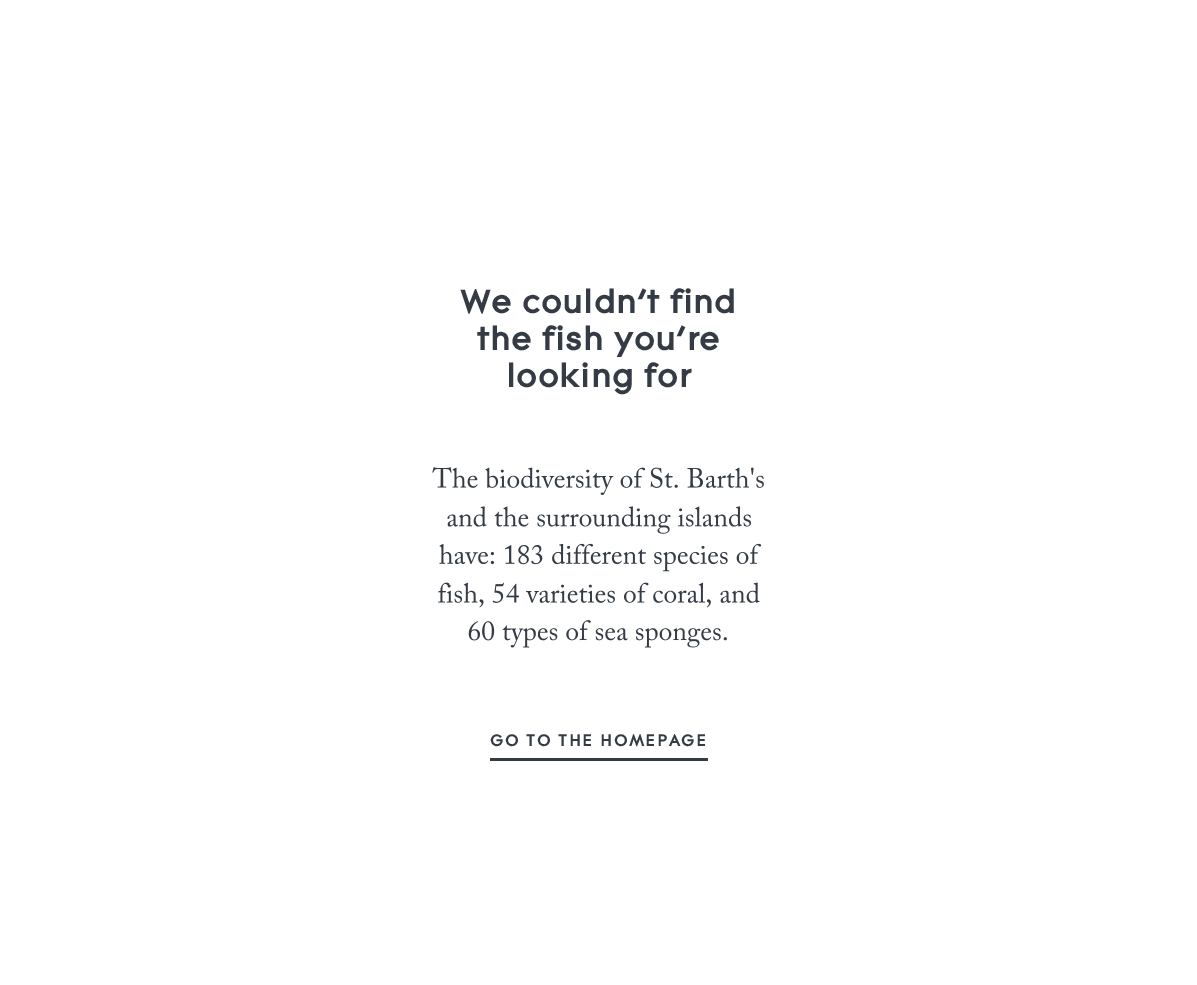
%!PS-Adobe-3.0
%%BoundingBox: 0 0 1197 985
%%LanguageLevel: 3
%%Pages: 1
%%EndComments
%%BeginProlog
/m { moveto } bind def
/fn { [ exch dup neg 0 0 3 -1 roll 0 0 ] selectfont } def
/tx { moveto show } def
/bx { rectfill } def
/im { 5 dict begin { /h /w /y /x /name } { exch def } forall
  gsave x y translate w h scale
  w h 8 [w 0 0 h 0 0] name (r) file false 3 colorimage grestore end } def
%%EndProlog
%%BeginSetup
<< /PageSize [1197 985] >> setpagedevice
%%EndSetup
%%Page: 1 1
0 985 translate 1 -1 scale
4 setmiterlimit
1 setgray
0 0 1197 985 bx
/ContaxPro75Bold-Bold 35 fn
0.204 0.231 0.271 setrgbcolor
(We couldn’t find) 460 313 tx
(the fish you’re) 477 350 tx
(looking for) 506 387 tx
(image0.raw) 432 467 332 28 im
(image1.raw) 447 506 304 28 im
(image2.raw) 439 543 323 29 im
(image3.raw) 438 582 322 26 im
(image4.raw) 468 620 259 28 im
490 758 218 3 bx
/ContaxPro75Bold-Bold 17.5 fn
490 746 m 1.25 0 (GO TO THE HOMEPAGE) ashow
showpage
%%EOF
